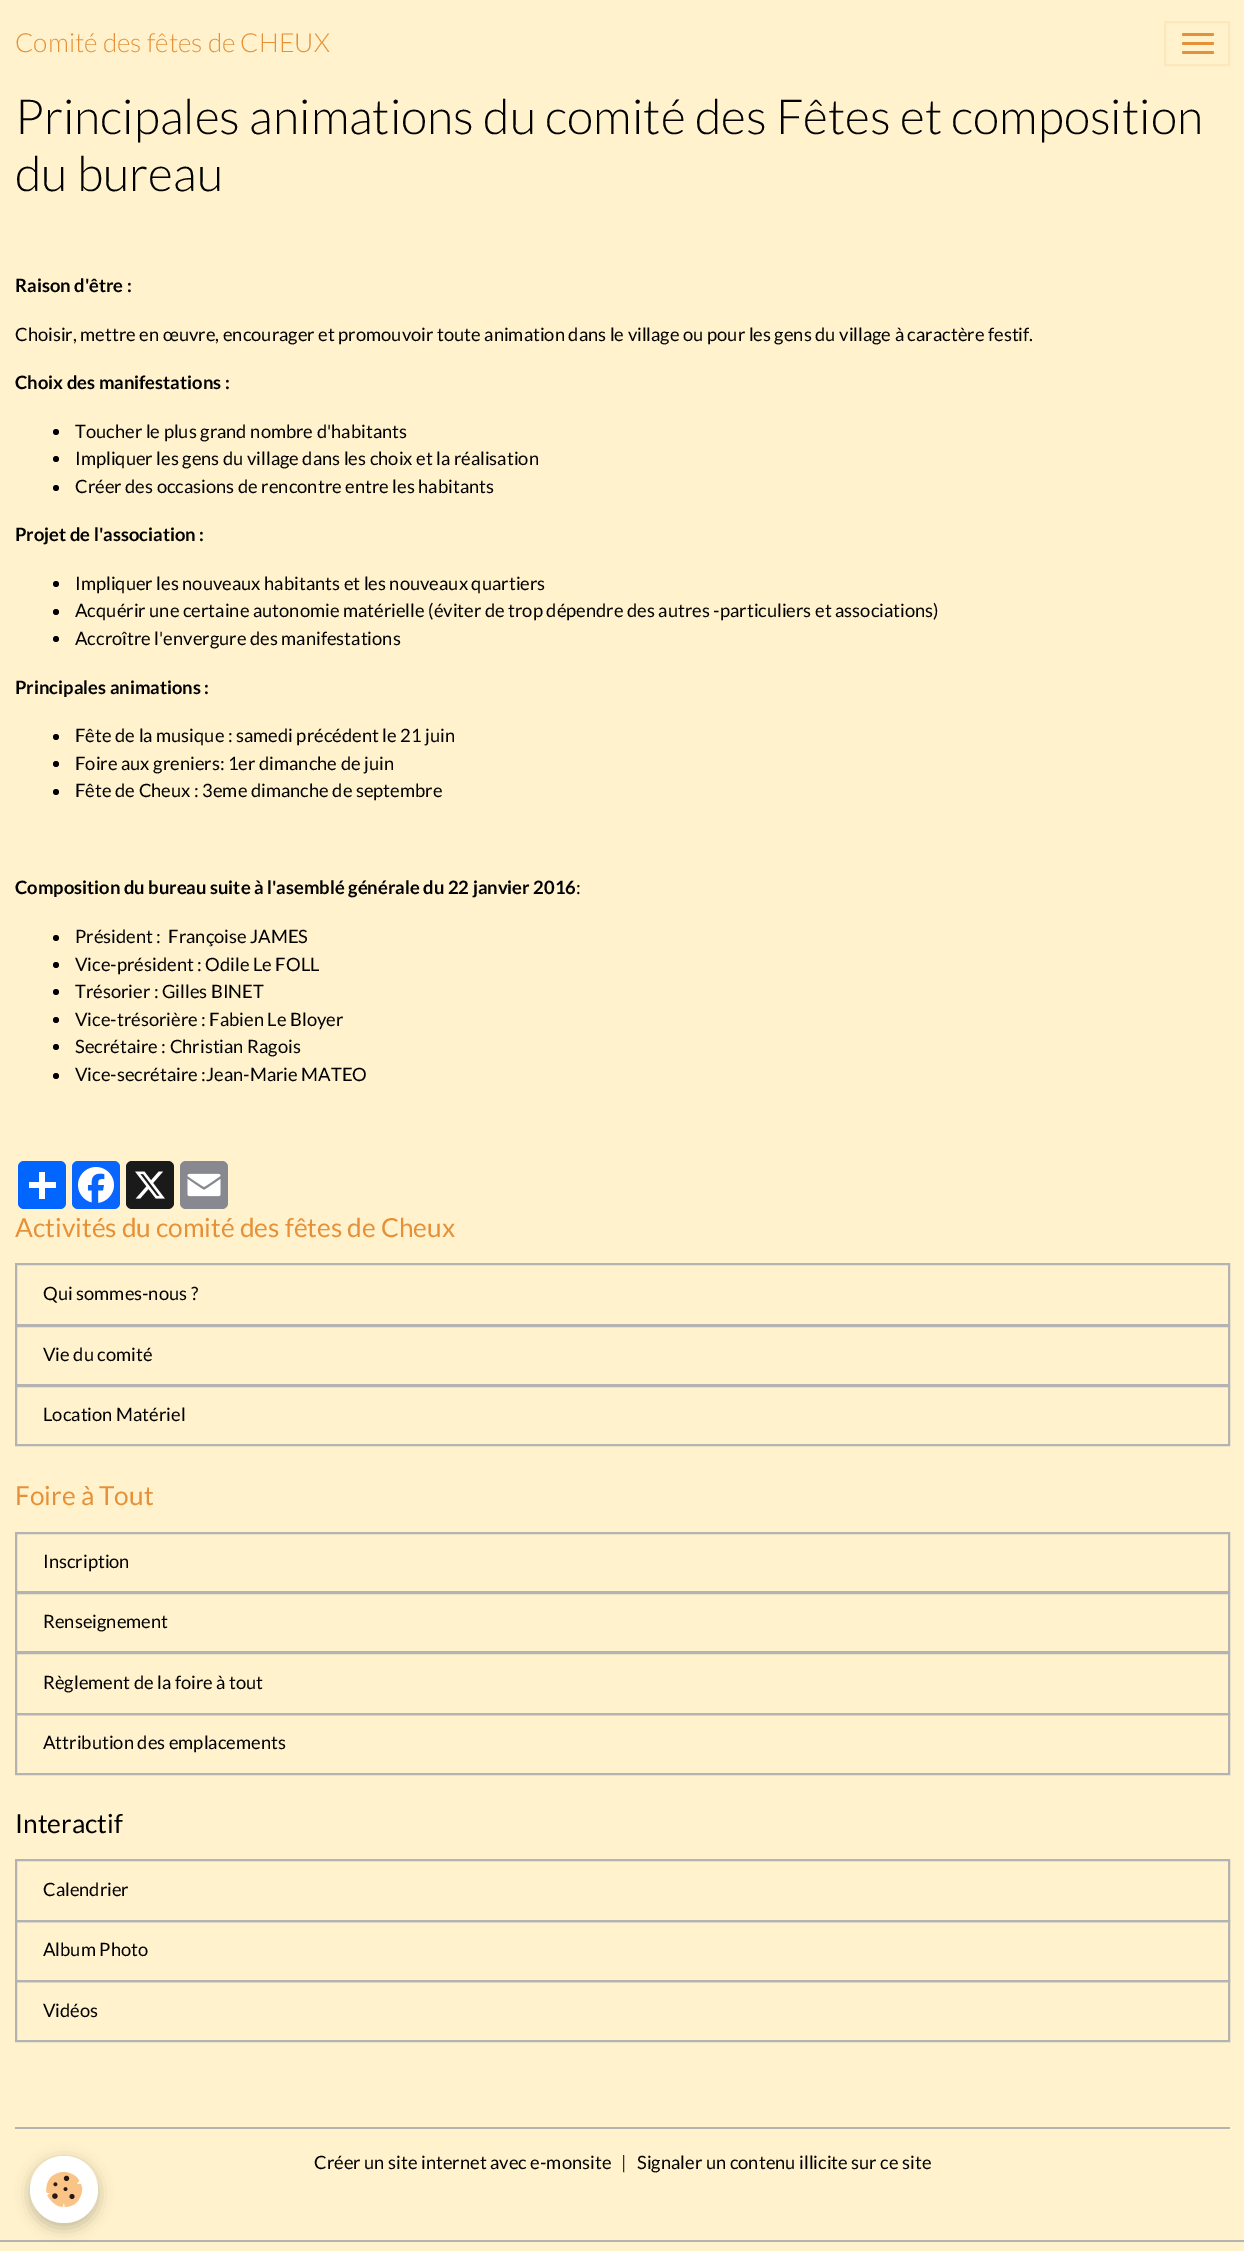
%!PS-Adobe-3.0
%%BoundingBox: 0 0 1244 2251
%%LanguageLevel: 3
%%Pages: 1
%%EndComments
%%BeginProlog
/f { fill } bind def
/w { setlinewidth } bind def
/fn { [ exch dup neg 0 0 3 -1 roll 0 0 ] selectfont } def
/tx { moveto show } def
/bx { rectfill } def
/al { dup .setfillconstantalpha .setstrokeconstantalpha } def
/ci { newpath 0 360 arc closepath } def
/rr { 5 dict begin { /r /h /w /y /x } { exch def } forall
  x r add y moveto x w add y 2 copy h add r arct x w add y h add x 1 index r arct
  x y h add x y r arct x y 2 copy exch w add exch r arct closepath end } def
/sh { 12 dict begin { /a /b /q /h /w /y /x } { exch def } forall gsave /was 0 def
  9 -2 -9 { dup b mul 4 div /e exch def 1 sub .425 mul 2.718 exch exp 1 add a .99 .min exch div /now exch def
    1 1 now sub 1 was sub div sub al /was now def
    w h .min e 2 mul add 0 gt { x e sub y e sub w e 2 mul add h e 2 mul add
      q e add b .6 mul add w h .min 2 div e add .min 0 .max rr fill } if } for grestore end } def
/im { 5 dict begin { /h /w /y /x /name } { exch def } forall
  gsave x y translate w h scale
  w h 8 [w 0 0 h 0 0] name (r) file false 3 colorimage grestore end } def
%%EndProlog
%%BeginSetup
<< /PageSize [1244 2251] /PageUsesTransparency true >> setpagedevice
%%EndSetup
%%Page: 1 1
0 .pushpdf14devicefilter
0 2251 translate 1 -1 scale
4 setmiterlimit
1 0.949 0.8 setrgbcolor
0 0 1244 2251 bx
/Lato-Light 26.25 fn
0.902 0.569 0.22 setrgbcolor
(Comité des fêtes de CHEUX) 15 52 tx
0.992 0.91 0.741 setrgbcolor
2 w
1165 22 64 43 rectstroke
0.902 0.569 0.22 setrgbcolor
1182 33 32 3 1.5 rr f
1182 42 32 3 1.5 rr f
1182 51 32 3 1.5 rr f
/Lato-Light 48.3 fn
0 setgray
(Principales animations du comité des Fêtes et composition) 15 134 tx
(du bureau) 15 191 tx
/Lato-Bold 18.38 fn
(Raison d'être :) 15 292 tx
/Lato-Regular 18.38 fn
(Choisir, mettre en œuvre, encourager et promouvoir toute animation dans le village ou pour les gens du village à caractère festif.) 15 341 tx
/Lato-Bold 18.38 fn
(Choix des manifestations :) 15 389 tx
56 432 3 ci f
/Lato-Regular 18.38 fn
(Toucher le plus grand nombre d'habitants) 75 438 tx
56 459 3 ci f
(Impliquer les gens du village dans les choix et la réalisation) 75 465 tx
56 488 3 ci f
(Créer des occasions de rencontre entre les habitants) 75 493 tx
/Lato-Bold 18.38 fn
(Projet de l'association :) 15 541 tx
56 584 3 ci f
/Lato-Regular 18.38 fn
(Impliquer les nouveaux habitants et les nouveaux quartiers) 75 590 tx
56 612 3 ci f
(Acquérir une certaine autonomie matérielle \(éviter de trop dépendre des autres -particuliers et associations\)) 75 617 tx
56 639 3 ci f
(Accroître l'envergure des manifestations) 75 645 tx
/Lato-Bold 18.38 fn
(Principales animations :) 15 694 tx
56 737 3 ci f
/Lato-Regular 18.38 fn
(Fête de la musique : samedi précédent le 21 juin) 75 742 tx
56 764 3 ci f
(Foire aux greniers: 1er dimanche de juin) 75 770 tx
56 792 3 ci f
(Fête de Cheux : 3eme dimanche de septembre) 75 797 tx
/Lato-Bold 18.38 fn
(Composition du bureau suite à l'asemblé générale du 22 janvier 2016) 15 894 tx
/Lato-Regular 18.38 fn
(:) 576 894 tx
56 938 3 ci f
(Président :  Françoise JAMES) 75 943 tx
56 965 3 ci f
(Vice-président : Odile Le FOLL) 75 971 tx
56 992 3 ci f
(Trésorier : Gilles BINET) 75 998 tx
56 1020 3 ci f
(Vice-trésorière : Fabien Le Bloyer) 75 1026 tx
56 1047 3 ci f
(Secrétaire : Christian Ragois) 75 1053 tx
56 1076 3 ci f
(Vice-secrétaire :Jean-Marie MATEO) 75 1081 tx
0.004 0.4 1 setrgbcolor
18 1161 48 48 6 rr f
1 setgray
39 1172 6 27 bx
29 1182 27 6 bx
0.031 0.4 1 setrgbcolor
72 1161 48 48 6 rr f
(image0.raw) 78 1167 36 36 im
0.102 setgray
126 1161 48 48 6 rr f
(image1.raw) 135 1171 30 28 im
0.533 0.537 0.565 setrgbcolor
180 1161 48 48 6 rr f
(image2.raw) 187 1173 34 24 im
/Lato-Regular 26.25 fn
0.902 0.569 0.22 setrgbcolor
(Activités du comité des fêtes de Cheux) 15 1237 tx
0.702 setgray
16 1264 1213 61 rectstroke
/Lato-Regular 18.38 fn
0 setgray
(Qui sommes-nous ?) 43 1300 tx
0.702 setgray
16 1326 1213 59 rectstroke
0 setgray
(Vie du comité) 43 1361 tx
0.702 setgray
16 1386 1213 59 rectstroke
0 setgray
(Location Matériel) 43 1421 tx
/Lato-Regular 26.25 fn
0.902 0.569 0.22 setrgbcolor
(Foire à Tout) 15 1505 tx
0.702 setgray
16 1533 1213 59 rectstroke
/Lato-Regular 18.38 fn
0 setgray
(Inscription) 43 1568 tx
0.702 setgray
16 1593 1213 59 rectstroke
0 setgray
(Renseignement) 43 1628 tx
0.702 setgray
16 1653 1213 61 rectstroke
0 setgray
(Règlement de la foire à tout) 43 1689 tx
0.702 setgray
16 1714 1213 60 rectstroke
0 setgray
(Attribution des emplacements) 43 1749 tx
/Lato-Regular 26.25 fn
(Interactif) 15 1833 tx
0.702 setgray
16 1860 1213 61 rectstroke
/Lato-Regular 18.38 fn
0 setgray
(Calendrier) 43 1896 tx
0.702 setgray
16 1921 1213 60 rectstroke
0 setgray
(Album Photo) 43 1956 tx
0.702 setgray
16 1981 1213 60 rectstroke
0 setgray
(Vidéos) 43 2017 tx
0.702 setgray
0 2240 1244 2 bx
0 setgray
30 2160 68 68 34 7.5 0.24 sh
1 setgray
30 2156 68 67 33.5 rr f
(image3.raw) 46 2171 37 36 im
0.702 setgray
15 2127 1215 2 bx
0 setgray
(Créer un site internet avec e-monsite) 314 2169 tx
0.2 0.188 0.161 setrgbcolor
(|) 621 2169 tx
0 setgray
(Signaler un contenu illicite sur ce site) 637 2169 tx
.poppdf14devicefilter showpage
%%EOF
